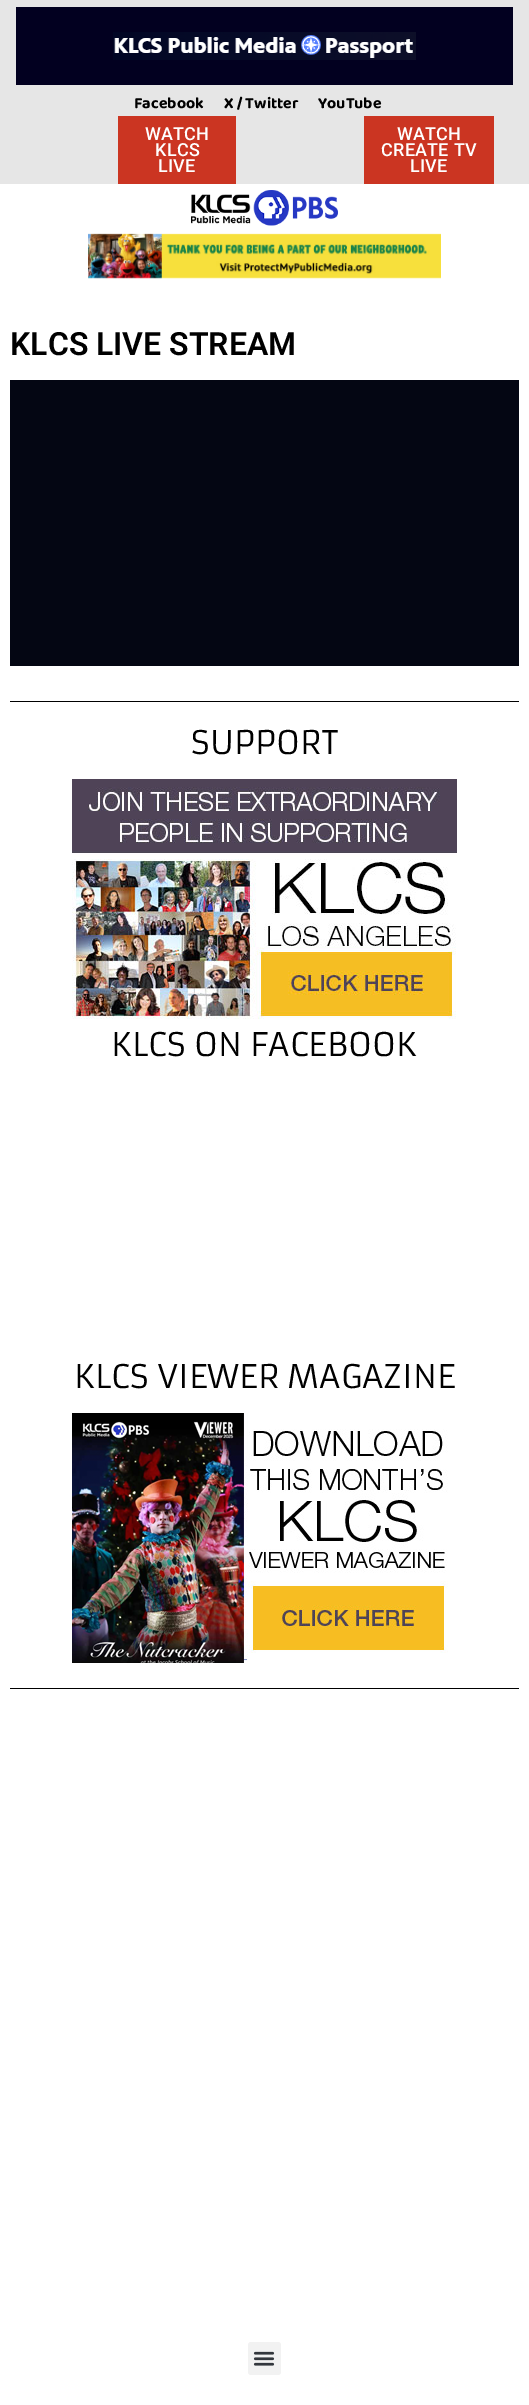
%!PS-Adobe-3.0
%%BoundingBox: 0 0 529 2405
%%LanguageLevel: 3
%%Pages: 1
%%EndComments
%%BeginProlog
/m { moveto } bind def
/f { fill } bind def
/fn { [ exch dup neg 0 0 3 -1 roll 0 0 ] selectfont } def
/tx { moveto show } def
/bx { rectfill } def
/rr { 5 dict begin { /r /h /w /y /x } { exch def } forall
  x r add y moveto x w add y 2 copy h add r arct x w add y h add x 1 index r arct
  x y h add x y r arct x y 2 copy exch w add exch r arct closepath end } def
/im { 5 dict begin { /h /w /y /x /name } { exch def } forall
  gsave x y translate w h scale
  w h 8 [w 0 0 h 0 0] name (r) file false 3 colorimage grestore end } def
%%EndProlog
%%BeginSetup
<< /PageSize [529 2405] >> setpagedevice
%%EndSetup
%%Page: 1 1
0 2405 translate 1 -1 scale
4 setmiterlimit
1 setgray
0 0 529 2405 bx
0.902 setgray
0 0 529 184 bx
0.008 0 0.125 setrgbcolor
16 7 497 78 bx
(image0.raw) 113 32 303 28 im
/Baloo2-Bold 16 fn
0 setgray
(Facebook) 134 108 tx
(X / Twitter) 224 108 tx
(YouTube) 318 108 tx
0.796 0.208 0.133 setrgbcolor
118 116 118 68 bx
/Roboto-Medium 18 fn
1 setgray
145 140 m 0.25 0 (WATCH) ashow
155 156 m 0.25 0 (KLCS) ashow
158 172 m 0.25 0 (LIVE) ashow
0.796 0.208 0.133 setrgbcolor
364 116 130 68 bx
1 setgray
397 140 m 0.25 0 (WATCH) ashow
381 156 m 0.25 0 (CREATE TV) ashow
410 172 m 0.25 0 (LIVE) ashow
(image1.raw) 191 190 147 36 im
(image2.raw) 88 233 353 46 im
/Roboto-SemiBold 32 fn
0 setgray
(KLCS LIVE STREAM) 10 355 tx
0.016 0.024 0.075 setrgbcolor
10 380 509 286 bx
0 setgray
10 701 509 1 bx
/Armata-Regular 32 fn
(SUPPORT) 191 754 tx
(image3.raw) 72 779 385 240 im
(KLCS ON FACEBOOK) 111 1056 tx
(KLCS VIEWER MAGAZINE) 74 1388 tx
(image4.raw) 72 1413 376 250 im
10 1688 509 1 bx
0.949 setgray
248 2342 33 33 3 rr f
(image5.raw) 253 2351 22 15 im
showpage
%%EOF
